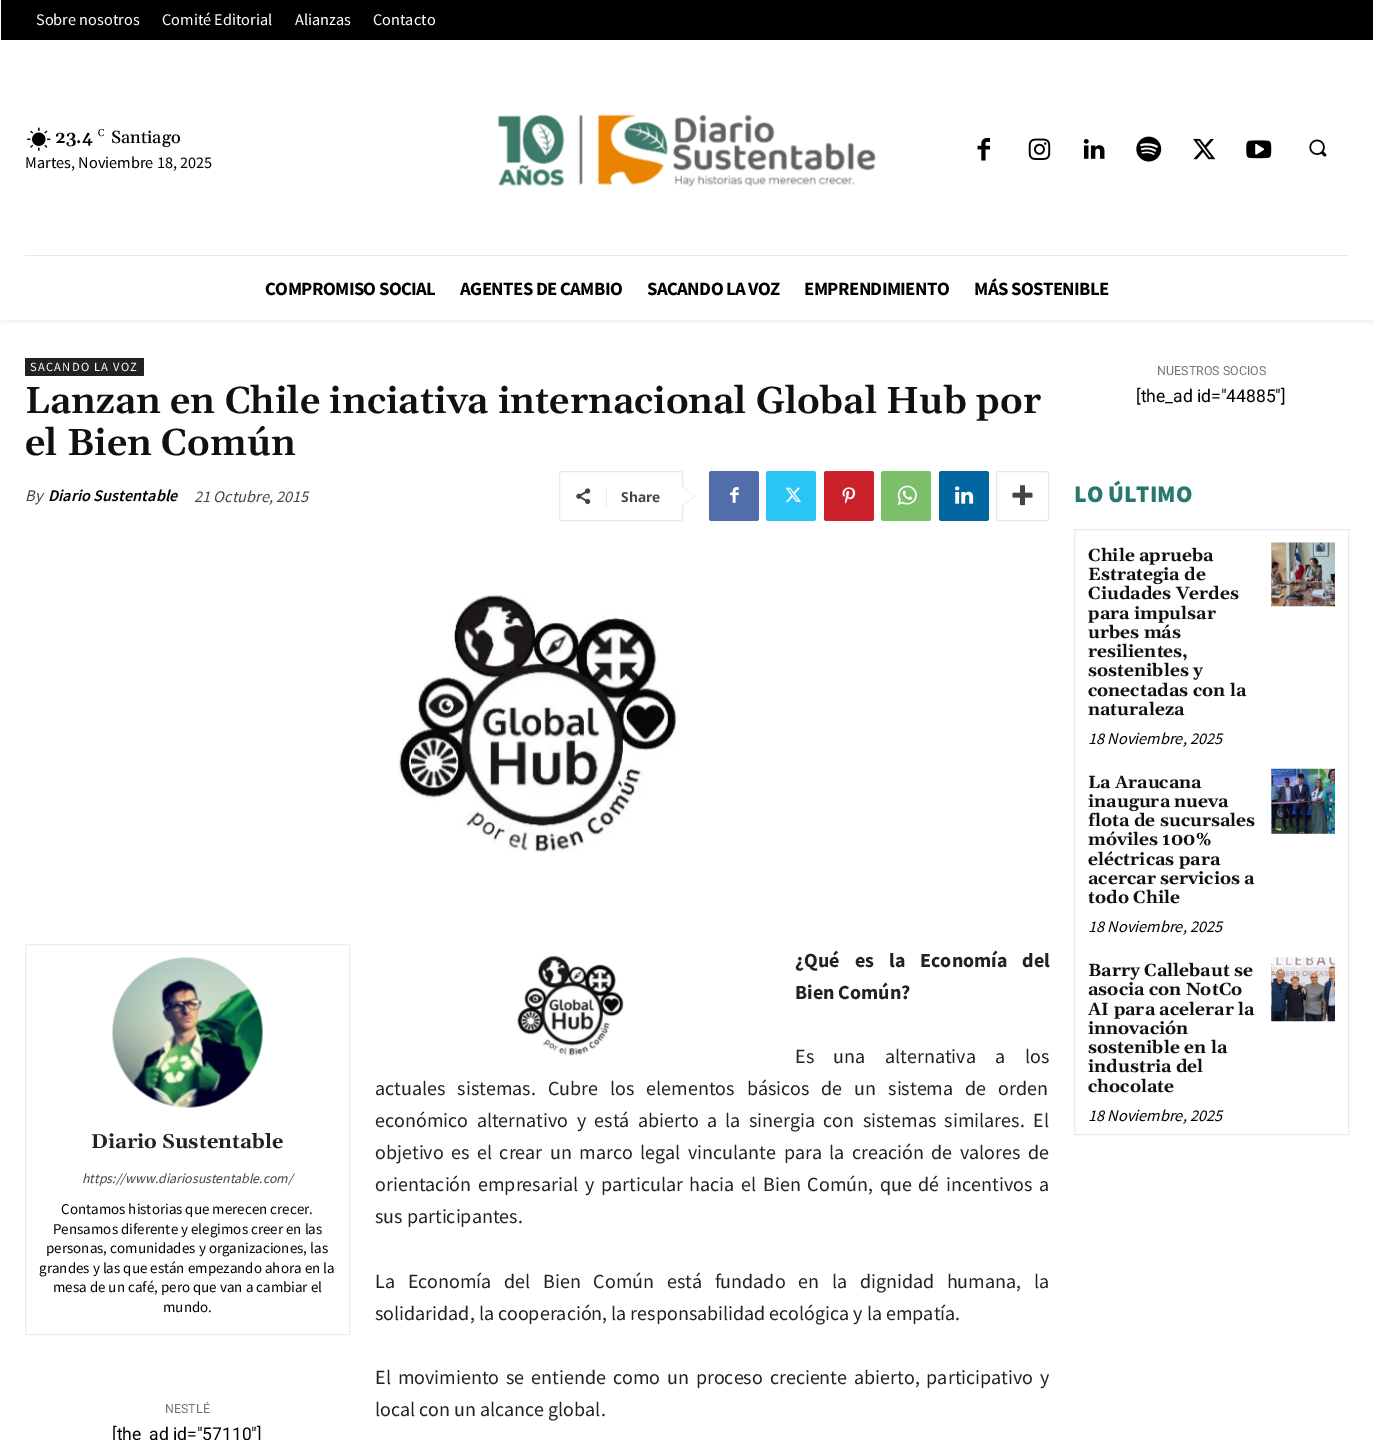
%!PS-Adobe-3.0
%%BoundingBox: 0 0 1373 1440
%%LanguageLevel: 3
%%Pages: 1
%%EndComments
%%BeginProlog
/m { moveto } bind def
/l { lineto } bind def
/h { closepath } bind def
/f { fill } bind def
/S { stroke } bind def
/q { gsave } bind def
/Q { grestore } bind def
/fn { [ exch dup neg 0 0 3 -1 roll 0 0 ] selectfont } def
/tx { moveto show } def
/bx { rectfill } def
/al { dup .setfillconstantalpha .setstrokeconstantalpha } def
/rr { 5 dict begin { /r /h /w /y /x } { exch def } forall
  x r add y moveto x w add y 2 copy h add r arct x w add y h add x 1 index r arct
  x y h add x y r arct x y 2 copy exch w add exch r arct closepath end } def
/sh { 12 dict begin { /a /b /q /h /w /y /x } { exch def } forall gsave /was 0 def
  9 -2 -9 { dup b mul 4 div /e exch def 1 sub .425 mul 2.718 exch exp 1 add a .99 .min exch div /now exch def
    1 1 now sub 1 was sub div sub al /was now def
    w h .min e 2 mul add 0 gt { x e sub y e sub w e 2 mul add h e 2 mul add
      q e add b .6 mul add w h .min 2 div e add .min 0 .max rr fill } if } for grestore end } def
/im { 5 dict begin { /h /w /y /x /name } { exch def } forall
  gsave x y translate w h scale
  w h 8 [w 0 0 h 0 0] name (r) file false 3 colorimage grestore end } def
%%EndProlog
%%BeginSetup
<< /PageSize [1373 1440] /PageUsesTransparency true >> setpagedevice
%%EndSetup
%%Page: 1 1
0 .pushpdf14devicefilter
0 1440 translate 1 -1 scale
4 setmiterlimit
1 setgray
0 0 1373 1440 bx
0 setgray
1 0 1372 40 bx
/SourceSansPro-Regular 16.25 fn
1 setgray
(Sobre nosotros) 36 25 tx
(Comité Editorial) 162 25 tx
(Alianzas) 295 25 tx
(Contacto) 373 25 tx
(image0.raw) 27 127 24 24 im
/Gelasio-SemiBold 17.5 fn
0 setgray
(23.4) 55 143 tx
/Gelasio-Regular 10 fn
(C) 98 136 tx
/Gelasio-Medium 17.5 fn
(Santiago) 111 143 tx
/SourceSansPro-Regular 16.25 fn
(Martes, Noviembre 18, 2025) 25 168 tx
(image1.raw) 497 114 379 73 im
(image2.raw) 977 138 13 23 im
(image3.raw) 1028 138 23 22 im
(image4.raw) 1083 139 22 20 im
(image5.raw) 1136 136 26 26 im
(image6.raw) 1193 138 23 22 im
(image7.raw) 1246 140 26 19 im
(image8.raw) 1309 139 18 18 im
0.918 setgray
25 255 1324 1 bx
q
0 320 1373 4 rectclip
0 setgray
1 220 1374 103 0 2.5 0.06 sh
Q
/SourceSansPro-Bold 18.75 fn
0 setgray
265 295 m -0.6 0 (COMPROMISO SOCIAL) ashow
460 295 m -0.6 0 (AGENTES DE CAMBIO) ashow
647 295 m -0.6 0 (SACANDO LA VOZ) ashow
804 295 m -0.6 0 (EMPRENDIMIENTO) ashow
974 295 m -0.6 0 (MÁS SOSTENIBLE) ashow
0.133 setgray
25 358 119 18 bx
/SourceSansPro-Regular 12.5 fn
1 setgray
30 371 m 1.25 0 (SACANDO LA VOZ) ashow
/Gelasio-SemiBold 37.5 fn
0.067 setgray
(Lanzan en Chile inciativa internacional Global Hub por) 25 413 tx
(el Bien Común) 25 455 tx
/SourceSansPro-Italic 16.25 fn
0.267 setgray
(By) 25 501 tx
/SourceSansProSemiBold-SemiBoldItalic 16.25 fn
0 setgray
(Diario Sustentable) 48 501 tx
/SourceSansPro-Italic 16.25 fn
0.267 setgray
(21 Octubre, 2015) 194 502 tx
0.914 setgray
559.5 471.5 123 49 2 rr S
681 507.5 m 681 485 l 695 496 l h f
(image9.raw) 576 488 15 17 im
0.922 setgray
606 488 1 20 bx
/OpenSans-Bold 13.75 fn
0.267 setgray
(Share) 621 502 tx
1 setgray
681 506 m 681 486 l 694 496 l h f
0.318 0.431 0.671 setrgbcolor
709 471 50 50 2.5 rr f
(image10.raw) 730 487 9 16 im
0.161 0.773 0.965 setrgbcolor
766 471 50 50 2.5 rr f
(image11.raw) 785 487 16 15 im
0.792 0.129 0.165 setrgbcolor
824 471 50 50 2.5 rr f
(image12.raw) 842 487 14 17 im
0.482 0.749 0.416 setrgbcolor
881 471 50 50 2.5 rr f
(image13.raw) 897 485 20 20 im
0.008 0.4 0.627 setrgbcolor
939 471 50 50 2.5 rr f
(image14.raw) 955 486 19 18 im
0.914 setgray
996.5 471.5 52 49 2 rr S
(image15.raw) 1012 485 21 21 im
(image16.raw) 398 594 279 258 im
0.929 setgray
25.5 944.5 324 390 rectstroke
(image17.raw) 112 957 151 151 im
/Gelasio-Bold 20 fn
0.133 setgray
(Diario Sustentable) 91 1148 tx
/SourceSansPro-Italic 13.75 fn
0.267 setgray
(https://www.diariosustentable.com/) 82 1183 tx
/SourceSansPro-Regular 15 fn
0 setgray
(Contamos historias que merecen crecer.) 61 1214 tx
(Pensamos diferente y elegimos creer en las) 53 1234 tx
(personas, comunidades y organizaciones, las) 46 1253 tx
(grandes y las que están empezando ahora en la) 39 1273 tx
(mesa de un café, pero que van a cambiar el) 53 1292 tx
(mundo.) 163 1312 tx
/Roboto-Regular 12.5 fn
0.463 setgray
(NESTLÉ) 165 1413 tx
/Roboto-Regular 17.5 fn
0 setgray
([the_ad id="57110"]) 112 1440 tx
(image18.raw) 517 955 107 101 im
/SourceSansPro-Bold 20 fn
0.133 setgray
795 967 m 11 0 32 (¿Qué es la Economía del) widthshow
(Bien Común?) 795 999 tx
/SourceSansPro-Regular 20 fn
795 1063 m 15.5 0 32 (Es una alternativa a los) widthshow
375 1095 m 8 0 32 (actuales sistemas. Cubre los elementos básicos de un sistema de orden) widthshow
375 1127 m 4.4 0 32 (económico alternativo y está abierto a la sinergia con sistemas similares. El) widthshow
375 1159 m 3.5 0 32 (objetivo es el crear un marco legal vinculante para la creación de valores de) widthshow
375 1191 m 2.75 0 32 (orientación empresarial y particular hacia el Bien Común, que dé incentivos a) widthshow
(sus participantes.) 375 1223 tx
375 1288 m 8.75 0 32 (La Economía del Bien Común está fundado en la dignidad humana, la) widthshow
(solidaridad, la cooperación, la responsabilidad ecológica y la empatía.) 375 1320 tx
375 1384 m 2.9 0 32 (El movimiento se entiende como un proceso creciente abierto, participativo y) widthshow
(local con un alcance global.) 375 1416 tx
/Roboto-Regular 12.5 fn
0.463 setgray
(NUESTROS SOCIOS) 1157 375 tx
/Roboto-Regular 17.5 fn
0 setgray
([the_ad id="44885"]) 1136 402 tx
/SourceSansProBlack-Black 23.75 fn
0.157 0.471 0.431 setrgbcolor
(LO ÚLTIMO) 1074 502 tx
0.918 setgray
1074.5 529.5 274 605 rectstroke
/Gelasio-Bold 17.5 fn
0.067 setgray
(Chile aprueba) 1088 561 tx
(Estrategia de) 1088 580 tx
(Ciudades Verdes) 1088 599 tx
(para impulsar) 1088 619 tx
(urbes más) 1088 638 tx
(resilientes,) 1088 657 tx
(sostenibles y) 1088 676 tx
(conectadas con la) 1088 696 tx
(naturaleza) 1088 715 tx
/SourceSansPro-Italic 16.25 fn
0 setgray
(18 Noviembre, 2025) 1088 744 tx
(image19.raw) 1271 542 64 65 im
/Gelasio-Bold 17.5 fn
0.067 setgray
(La Araucana) 1088 788 tx
(inaugura nueva) 1088 807 tx
(flota de sucursales) 1088 826 tx
(móviles 100%) 1088 845 tx
(eléctricas para) 1088 865 tx
(acercar servicios a) 1088 884 tx
(todo Chile) 1088 903 tx
/SourceSansPro-Italic 16.25 fn
0 setgray
(18 Noviembre, 2025) 1088 932 tx
(image20.raw) 1271 768 64 66 im
/Gelasio-Bold 17.5 fn
0.067 setgray
(Barry Callebaut se) 1088 976 tx
(asocia con NotCo) 1088 995 tx
(AI para acelerar la) 1088 1015 tx
(innovación) 1088 1034 tx
(sostenible en la) 1088 1053 tx
(industria del) 1088 1072 tx
(chocolate) 1088 1092 tx
/SourceSansPro-Italic 16.25 fn
0 setgray
(18 Noviembre, 2025) 1088 1121 tx
(image21.raw) 1271 957 64 65 im
.poppdf14devicefilter showpage
%%EOF
